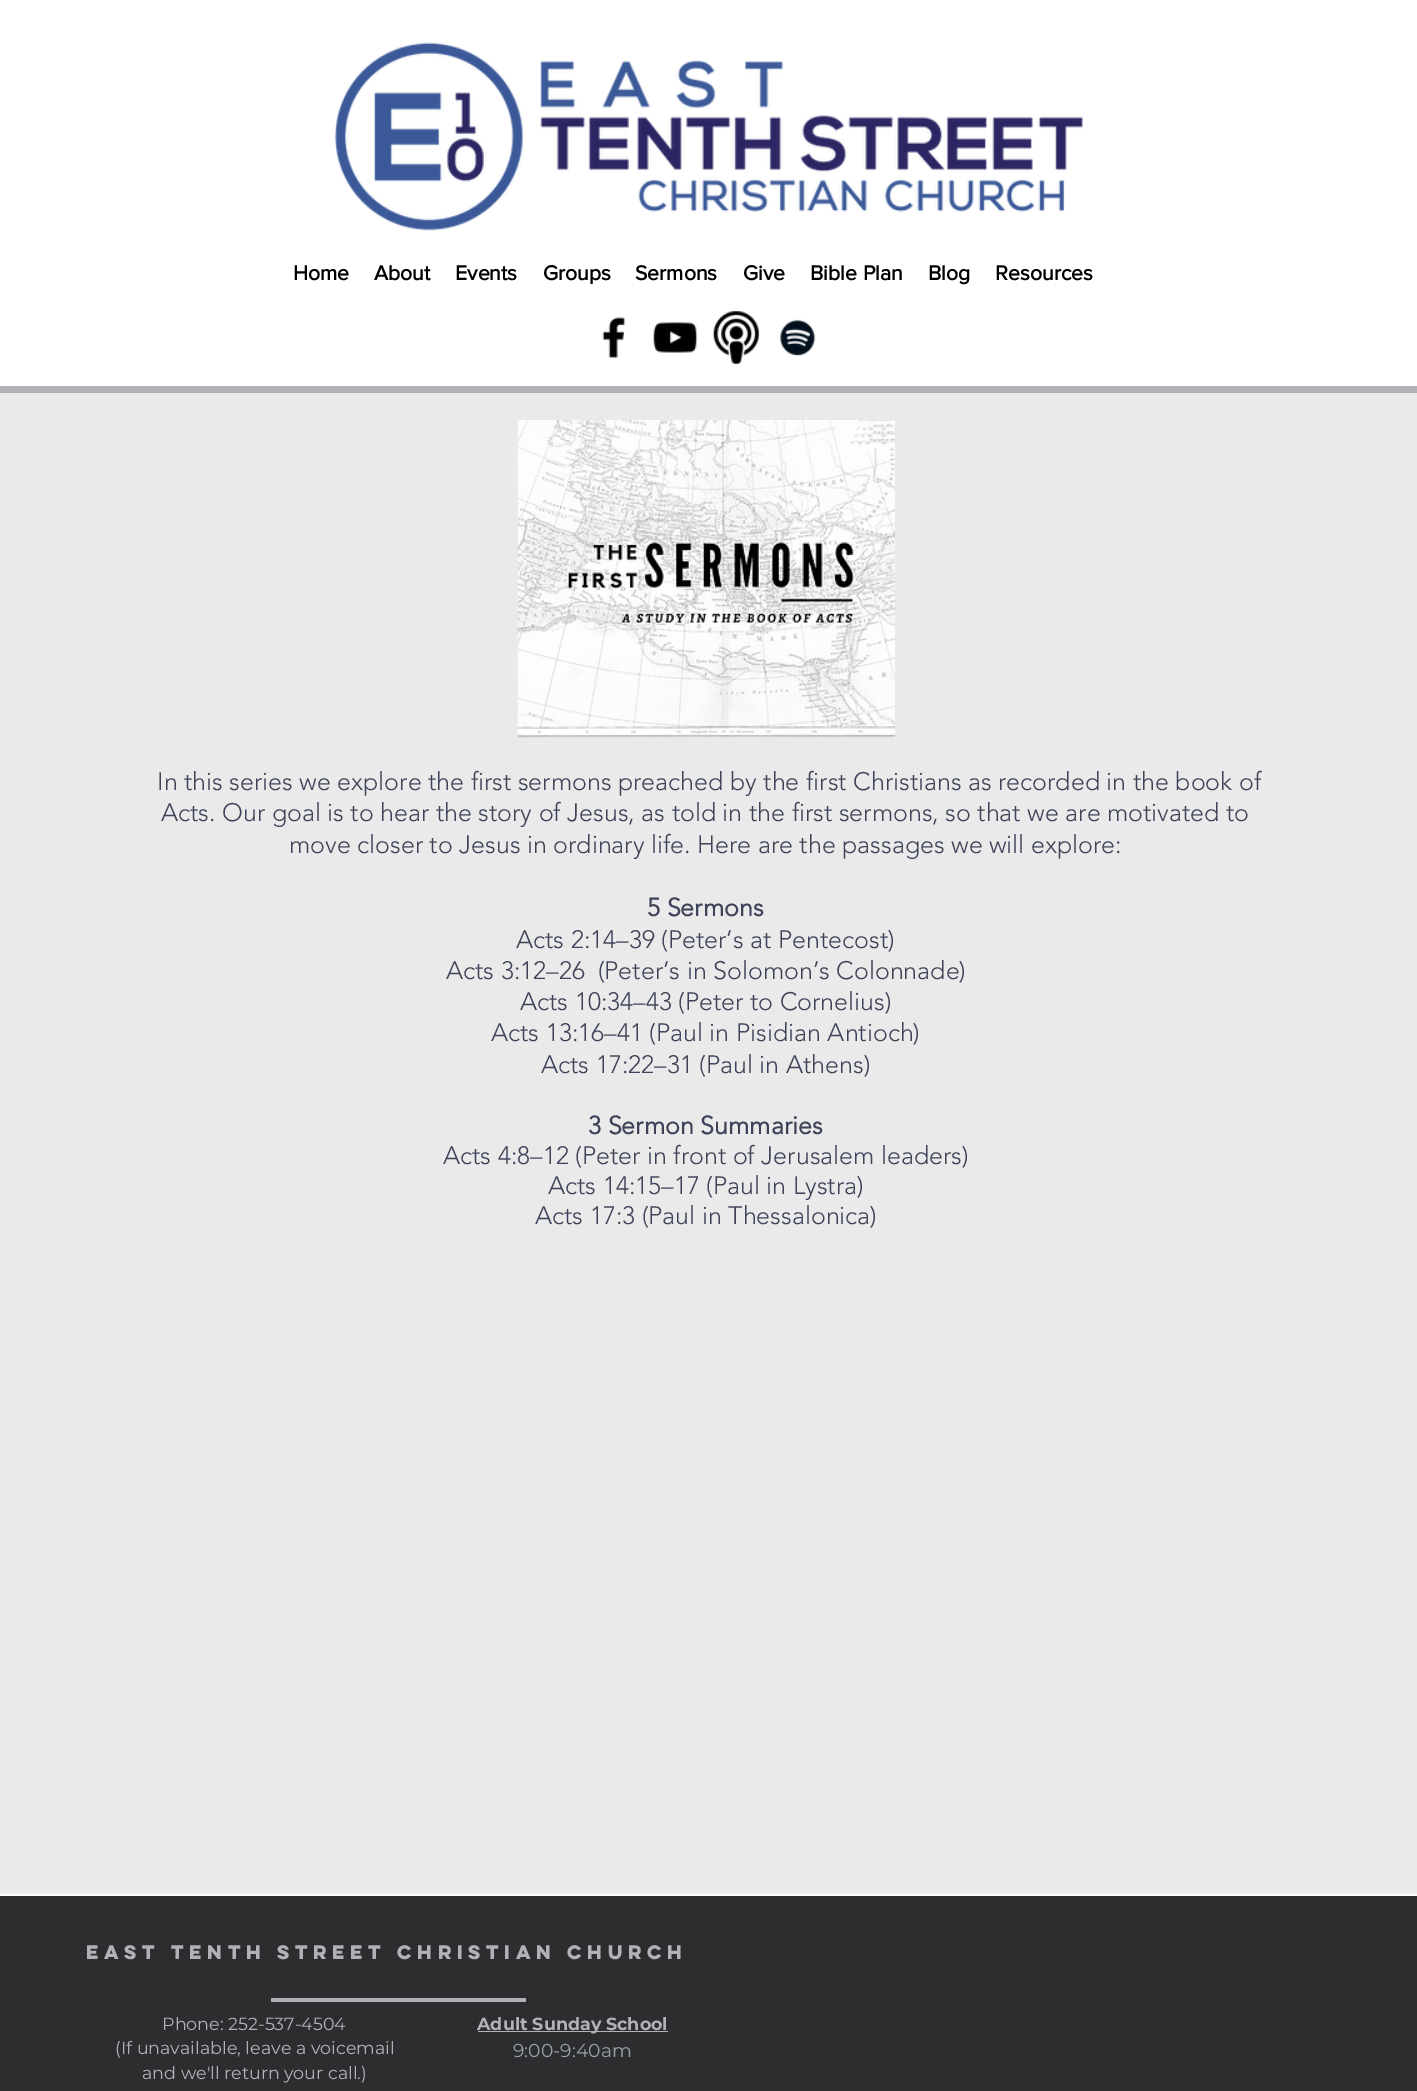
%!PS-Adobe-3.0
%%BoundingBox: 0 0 1417 2091
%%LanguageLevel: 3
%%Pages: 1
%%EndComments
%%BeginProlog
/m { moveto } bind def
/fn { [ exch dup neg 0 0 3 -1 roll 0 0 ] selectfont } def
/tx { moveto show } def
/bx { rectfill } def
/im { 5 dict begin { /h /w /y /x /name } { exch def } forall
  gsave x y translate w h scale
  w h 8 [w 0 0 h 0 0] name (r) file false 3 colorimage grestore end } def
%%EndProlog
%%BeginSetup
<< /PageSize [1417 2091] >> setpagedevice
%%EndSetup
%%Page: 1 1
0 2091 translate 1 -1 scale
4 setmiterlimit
1 setgray
0 0 1417 2091 bx
(image0.raw) 334 42 749 189 im
/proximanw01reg-Bold 21.25 fn
0 setgray
(Home) 293 280 tx
(About) 374 280 tx
(Events) 455 280 tx
(Groups) 543 280 tx
(Sermons) 635 280 tx
(Give) 743 280 tx
(Bible Plan) 810 280 tx
(Blog) 928 280 tx
(Resources) 995 280 tx
(image1.raw) 602 317 24 41 im
(image2.raw) 653 322 45 31 im
(image3.raw) 712 311 48 53 im
(image4.raw) 779 319 37 37 im
0.69 0.698 0.722 setrgbcolor
0 386 1417 7 bx
0.918 setgray
0 393 1417 1501 bx
(image5.raw) 517 420 378 318 im
/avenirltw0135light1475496-Light 25 fn
0.247 0.263 0.349 setrgbcolor
(In this series we explore the first sermons preached by the first Christians as recorded in the book of) 157 790 tx
(Acts. Our goal is to hear the story of Jesus, as told in the first sermons, so that we are motivated to) 161 821 tx
(move closer to Jesus in ordinary life. Here are the passages we will explore:) 289 853 tx
/avenirltw0135light1475496-Bold 25 fn
(5 Sermons) 647 916 tx
/avenirltw0135light1475496-Light 25 fn
(Acts 2:14–39 \(Peter’s at Pentecost\)) 516 948 tx
(Acts 3:12–26  \(Peter’s in Solomon’s Colonnade\)) 446 979 tx
(Acts 10:34–43 \(Peter to Cornelius\)) 520 1010 tx
(Acts 13:16–41 \(Paul in Pisidian Antioch\)) 491 1041 tx
(Acts 17:22–31 \(Paul in Athens\)) 541 1073 tx
/avenirltw0135light1475496-Bold 25 fn
(3 Sermon Summaries) 588 1134 tx
/avenirltw0135light1475496-Light 25 fn
(Acts 4:8–12 \(Peter in front of Jerusalem leaders\)) 443 1164 tx
(Acts 14:15–17 \(Paul in Lystra\)) 548 1194 tx
(Acts 17:3 \(Paul in Thessalonica\)) 535 1224 tx
0.173 0.176 0.18 setrgbcolor
0 1896 1417 195 bx
/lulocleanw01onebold-Bold 17.5 fn
0.69 0.698 0.722 setrgbcolor
86 1959 m 1.75 0 (East Tenth Street Christian Church) ashow
271 1998 255 4 bx
/Montserrat-Regular 17.5 fn
(Phone: 252-537-4504) 162 2030 tx
(\(If unavailable, leave a voicemail) 115 2054 tx
(and we'll return your call.\)) 142 2079 tx
478 2031 190 1 bx
/Montserrat-Bold 17.5 fn
(Adult Sunday School) 477 2030 tx
/Montserrat-Regular 18.75 fn
0.608 0.62 0.675 setrgbcolor
(9:00-9:40am) 513 2057 tx
showpage
%%EOF
